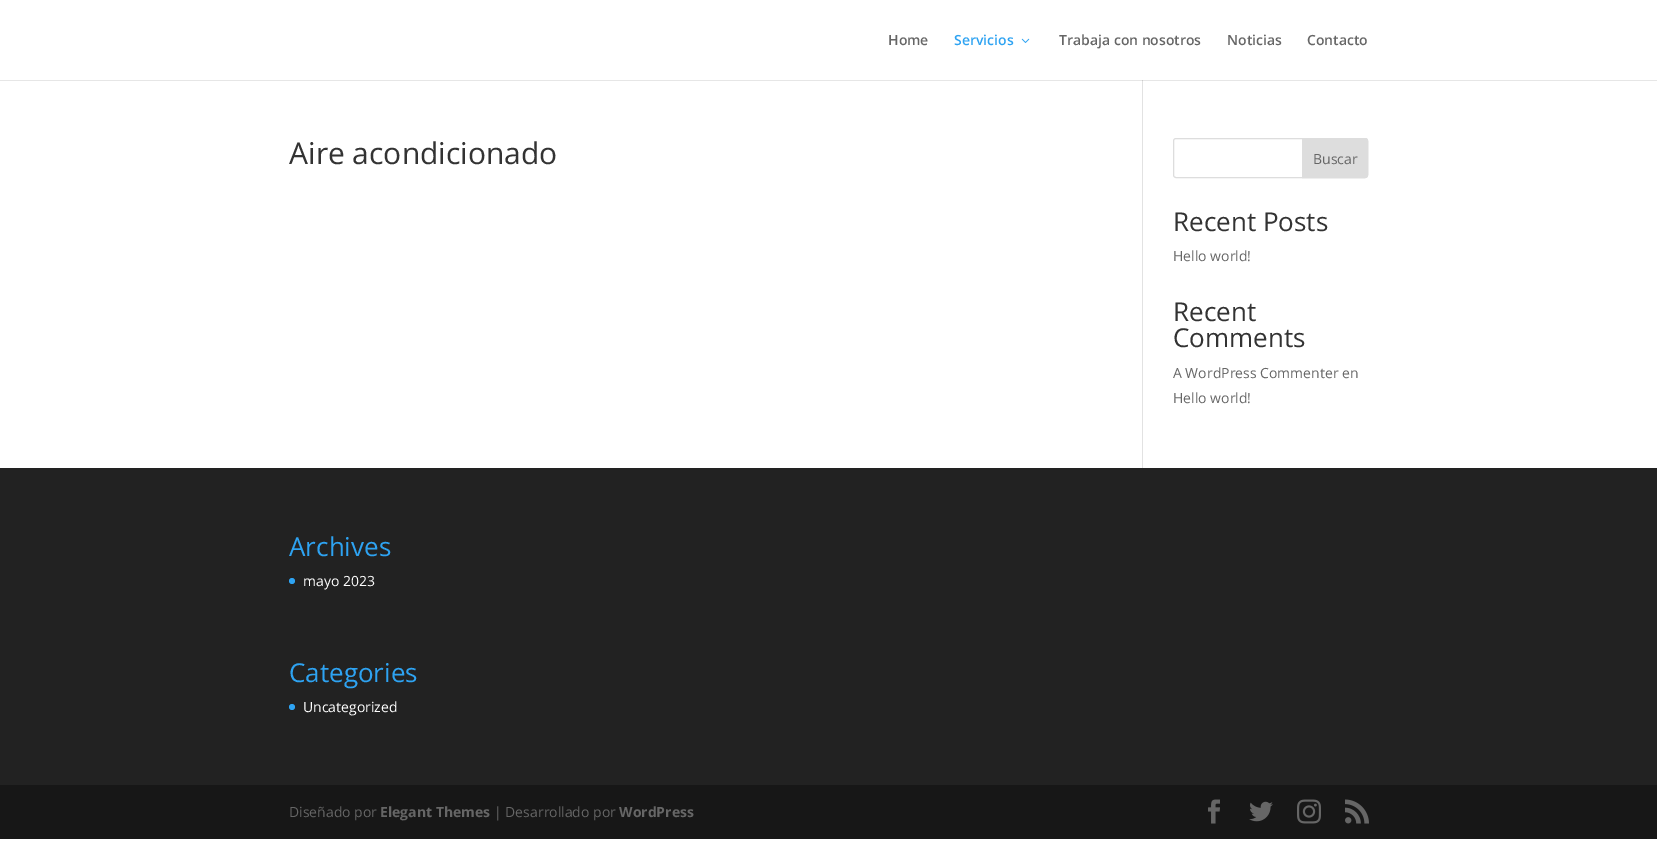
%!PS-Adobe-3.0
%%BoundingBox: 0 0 1657 855
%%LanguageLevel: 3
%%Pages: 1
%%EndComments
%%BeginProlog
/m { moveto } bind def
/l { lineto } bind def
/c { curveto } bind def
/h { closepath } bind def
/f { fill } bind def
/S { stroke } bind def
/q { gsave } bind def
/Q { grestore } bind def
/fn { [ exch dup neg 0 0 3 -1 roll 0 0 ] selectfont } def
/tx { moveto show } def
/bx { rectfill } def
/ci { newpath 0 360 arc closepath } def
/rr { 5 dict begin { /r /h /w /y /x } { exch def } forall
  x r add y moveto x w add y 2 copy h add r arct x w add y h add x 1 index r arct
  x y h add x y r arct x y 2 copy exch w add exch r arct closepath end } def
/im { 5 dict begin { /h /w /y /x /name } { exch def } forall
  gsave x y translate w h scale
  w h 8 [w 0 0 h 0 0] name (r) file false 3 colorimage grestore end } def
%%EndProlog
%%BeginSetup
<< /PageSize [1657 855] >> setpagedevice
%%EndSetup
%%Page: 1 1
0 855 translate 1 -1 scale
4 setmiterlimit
1 setgray
0 0 1657 855 bx
0.902 setgray
0 80 1657 1 bx
/OpenSans-SemiBold 14 fn
0.4 setgray
(Home) 888 45 tx
0.18 0.639 0.949 setrgbcolor
(Servicios) 954 45 tx
(image0.raw) 1021 38 9 5 im
0.4 setgray
(Trabaja con nosotros) 1059 45 tx
(Noticias) 1227 45 tx
(Contacto) 1307 45 tx
0.886 setgray
1142 80 1 388 bx
0.796 setgray
1142 80 1 1 bx
/OpenSans-Regular 30 fn
0.2 setgray
(Aire acondicionado) 289 164 tx
0.867 setgray
1173.5 138.5 194 39 2.5 rr S
1302.5 138.5 m 1365 138.5 l 1366.5 138.5 1367.5 139.5 1367.5 141 c 1367.5 175 l 1367.5 176.5 1366.5 177.5 1365 177.5 c 1302.5 177.5 l h q f Q
S
/OpenSans-Regular 14 fn
0.4 setgray
(Buscar) 1313 164 tx
/OpenSans-Regular 26 fn
0.2 setgray
(Recent Posts) 1173 231 tx
/OpenSans-Regular 14 fn
0.4 setgray
(Hello world!) 1173 261 tx
/OpenSans-Regular 26 fn
0.2 setgray
(Recent) 1173 321 tx
(Comments) 1173 347 tx
/OpenSans-Regular 14 fn
0.4 setgray
(A WordPress Commenter en) 1173 378 tx
(Hello world!) 1173 403 tx
0.133 setgray
0 468 1657 317 bx
/OpenSans-Regular 26 fn
0.18 0.639 0.949 setrgbcolor
(Archives) 289 556 tx
292 581 3 ci f
/OpenSans-Regular 14 fn
1 setgray
(mayo 2023) 303 586 tx
/OpenSans-Regular 26 fn
0.18 0.639 0.949 setrgbcolor
(Categories) 289 682 tx
292 707 3 ci f
/OpenSans-Regular 14 fn
1 setgray
(Uncategorized) 303 712 tx
0.09 setgray
0 785 1657 54 bx
0.4 setgray
(Diseñado por) 289 817 tx
/OpenSans-Bold 14 fn
(Elegant Themes) 380 817 tx
/OpenSans-Regular 14 fn
(| Desarrollado por) 494 817 tx
/OpenSans-Bold 14 fn
(WordPress) 619 817 tx
(image1.raw) 1208 799 12 25 im
(image2.raw) 1249 801 24 21 im
(image3.raw) 1297 799 24 25 im
(image4.raw) 1345 799 24 25 im
showpage
%%EOF
